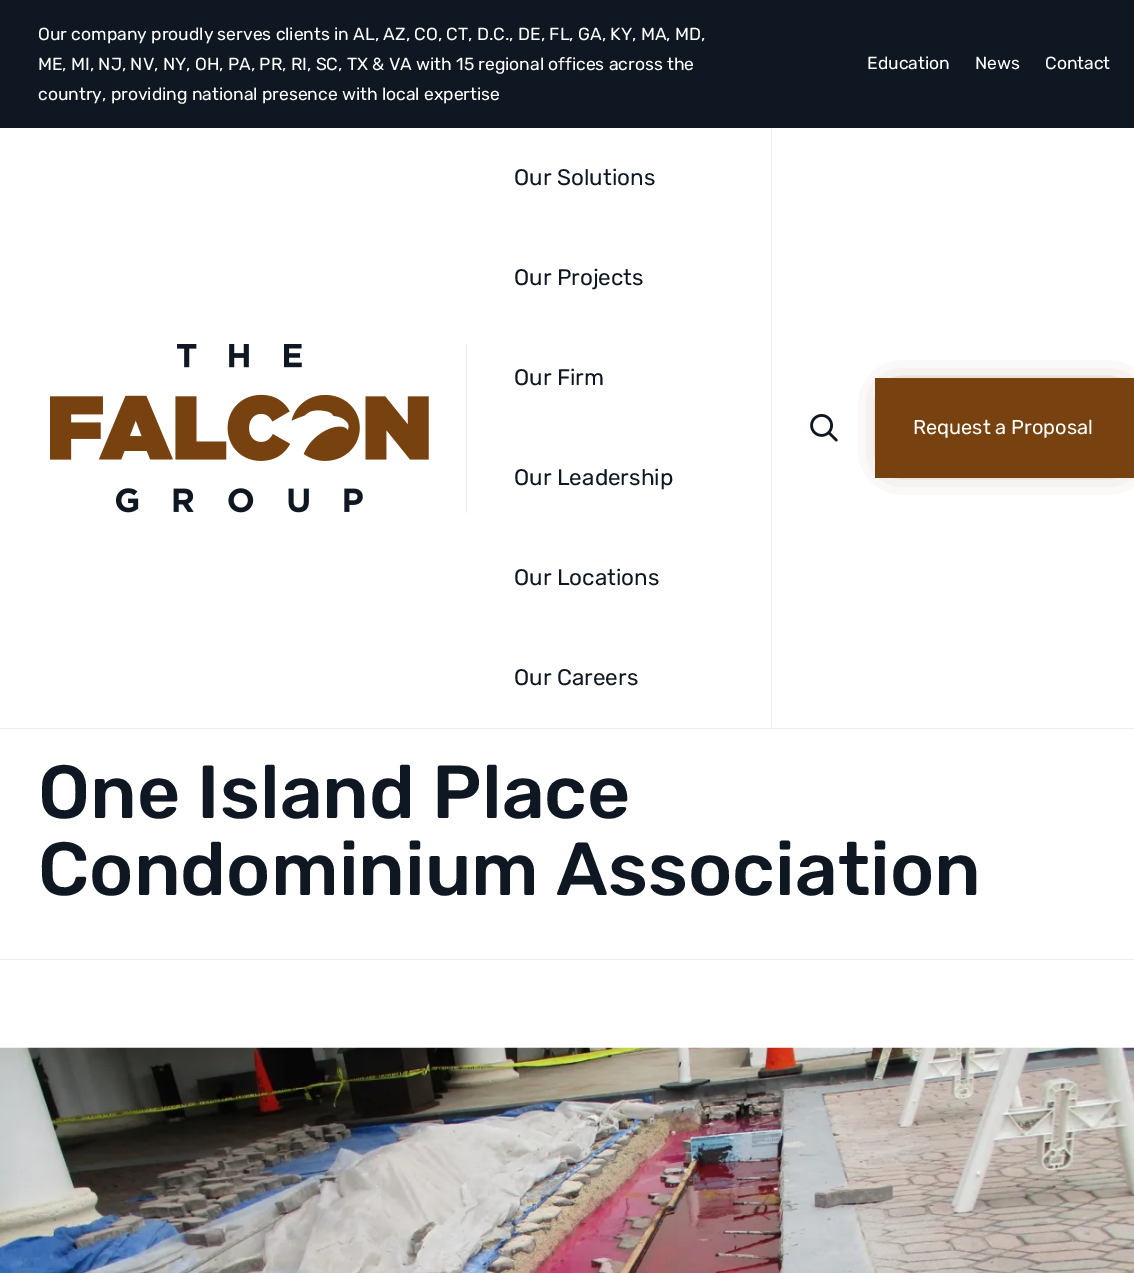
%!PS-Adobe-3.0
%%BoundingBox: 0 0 1134 1273
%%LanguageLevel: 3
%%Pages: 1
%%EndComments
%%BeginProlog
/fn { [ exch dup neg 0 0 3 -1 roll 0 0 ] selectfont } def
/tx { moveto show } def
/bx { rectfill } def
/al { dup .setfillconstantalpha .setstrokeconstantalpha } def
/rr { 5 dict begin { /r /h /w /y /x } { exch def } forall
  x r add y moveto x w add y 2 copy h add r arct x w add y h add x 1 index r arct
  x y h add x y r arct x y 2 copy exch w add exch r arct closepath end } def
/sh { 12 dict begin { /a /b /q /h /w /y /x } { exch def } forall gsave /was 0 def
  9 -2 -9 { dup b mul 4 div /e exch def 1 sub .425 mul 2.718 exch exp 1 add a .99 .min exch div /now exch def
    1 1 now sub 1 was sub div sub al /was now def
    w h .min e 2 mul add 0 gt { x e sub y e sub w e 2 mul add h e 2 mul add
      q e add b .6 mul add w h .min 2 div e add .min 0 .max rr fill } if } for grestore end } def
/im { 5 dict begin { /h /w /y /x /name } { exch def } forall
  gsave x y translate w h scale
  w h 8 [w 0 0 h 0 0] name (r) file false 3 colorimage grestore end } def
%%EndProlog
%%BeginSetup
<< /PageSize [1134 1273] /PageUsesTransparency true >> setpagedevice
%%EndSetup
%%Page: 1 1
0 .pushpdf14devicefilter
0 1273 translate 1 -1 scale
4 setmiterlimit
1 setgray
0 0 1134 1273 bx
0.929 setgray
0 728 1134 1 bx
0.059 0.094 0.133 setrgbcolor
0 0 1134 128 bx
/Rubik-Regular 17.5 fn
1 setgray
(Our company proudly serves clients in AL, AZ, CO, CT, D.C., DE, FL, GA, KY, MA, MD,) 38 40 tx
(ME, MI, NJ, NV, NY, OH, PA, PR, RI, SC, TX & VA with 15 regional offices across the) 38 70 tx
(country, providing national presence with local expertise) 38 100 tx
(Education) 867 69 tx
(News) 975 69 tx
(Contact) 1045 69 tx
0.929 setgray
466 344 1 169 bx
(image0.raw) 50 344 379 169 im
771 128 1 600 bx
/Rubik-Regular 22.5 fn
0.059 0.094 0.133 setrgbcolor
(Our Solutions) 514 185 tx
(Our Projects) 514 285 tx
(Our Firm) 514 385 tx
(Our Leadership) 514 485 tx
(Our Locations) 514 585 tx
(Our Careers) 514 685 tx
(image1.raw) 810 414 28 28 im
0.467 0.259 0.063 setrgbcolor
893 395 225 65 0 15.5 1 sh
875 378 259 100 bx
/Rubik-Regular 20 fn
1 setgray
(Request a Proposal) 913 434 tx
0.929 setgray
0 959 1134 1 bx
/Rubik-Medium 75 fn
0.059 0.094 0.133 setrgbcolor
(One Island Place) 38 818 tx
(Condominium Association) 38 895 tx
(image2.raw) 0 1047 1134 226 im
.poppdf14devicefilter showpage
%%EOF
